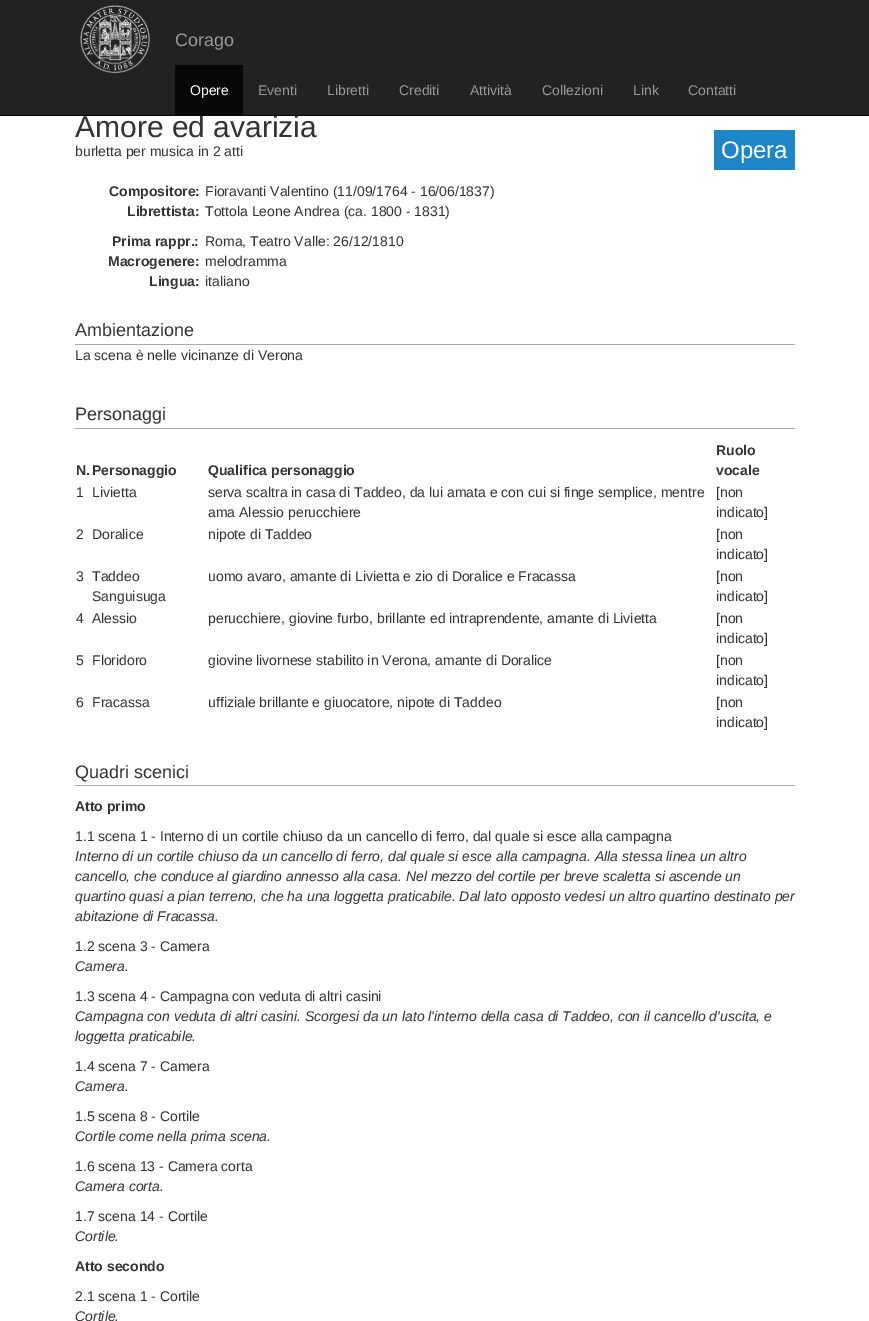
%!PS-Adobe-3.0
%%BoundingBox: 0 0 869 1321
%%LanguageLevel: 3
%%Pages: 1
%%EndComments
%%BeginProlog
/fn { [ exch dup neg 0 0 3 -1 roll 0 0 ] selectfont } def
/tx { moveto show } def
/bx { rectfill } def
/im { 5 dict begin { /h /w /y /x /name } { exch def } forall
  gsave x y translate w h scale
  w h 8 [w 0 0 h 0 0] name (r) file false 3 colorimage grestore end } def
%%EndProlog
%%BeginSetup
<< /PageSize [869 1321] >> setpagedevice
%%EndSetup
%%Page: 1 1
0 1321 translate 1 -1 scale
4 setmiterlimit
1 setgray
0 0 869 1321 bx
0.133 setgray
0 0 869 115 bx
/LiberationSans-Regular 30 fn
0.2 setgray
(Amore ed avarizia) 75 137 tx
0.031 setgray
0 115 869 1 bx
(image0.raw) 80 5 70 69 im
/LiberationSans-Regular 18 fn
0.6 setgray
(Corago) 175 46 tx
0.031 setgray
175 65 68 50 bx
/LiberationSans-Regular 14 fn
1 setgray
(Opere) 190 95 tx
0.6 setgray
(Eventi) 258 95 tx
(Libretti) 327 95 tx
(Crediti) 399 95 tx
(Attività) 470 95 tx
(Collezioni) 542 95 tx
(Link) 633 95 tx
(Contatti) 688 95 tx
0.2 setgray
(burletta per musica in 2 atti) 75 156 tx
0.11 0.525 0.784 setrgbcolor
714 130 81 40 bx
/LiberationSans-Regular 24 fn
1 setgray
(Opera) 721 158 tx
/LiberationSans-Bold 14 fn
0.2 setgray
(Compositore:) 109 196 tx
/LiberationSans-Regular 14 fn
(Fioravanti Valentino \(11/09/1764 - 16/06/1837\)) 205 196 tx
/LiberationSans-Bold 14 fn
(Librettista:) 127 216 tx
/LiberationSans-Regular 14 fn
(Tottola Leone Andrea \(ca. 1800 - 1831\)) 205 216 tx
/LiberationSans-Bold 14 fn
(Prima rappr.:) 112 246 tx
/LiberationSans-Regular 14 fn
(Roma, Teatro Valle: 26/12/1810) 205 246 tx
/LiberationSans-Bold 14 fn
(Macrogenere:) 108 266 tx
/LiberationSans-Regular 14 fn
(melodramma) 205 266 tx
/LiberationSans-Bold 14 fn
(Lingua:) 149 286 tx
/LiberationSans-Regular 14 fn
(italiano) 205 286 tx
0.667 setgray
75 344 720 1 bx
/LiberationSans-Regular 18 fn
0.2 setgray
(Ambientazione) 75 336 tx
/LiberationSans-Regular 14 fn
(La scena è nelle vicinanze di Verona) 75 360 tx
0.667 setgray
75 428 720 1 bx
/LiberationSans-Regular 18 fn
0.2 setgray
(Personaggi) 75 420 tx
/LiberationSans-Bold 14 fn
(N.) 76 475 tx
(Personaggio) 92 475 tx
(Qualifica personaggio) 208 475 tx
(Ruolo) 716 455 tx
(vocale) 716 475 tx
/LiberationSans-Regular 14 fn
(1) 76 497 tx
(Livietta) 92 497 tx
(serva scaltra in casa di Taddeo, da lui amata e con cui si finge semplice, mentre) 208 497 tx
(ama Alessio perucchiere) 208 517 tx
([non) 716 497 tx
(indicato]) 716 517 tx
(2) 76 539 tx
(Doralice) 92 539 tx
(nipote di Taddeo) 208 539 tx
([non) 716 539 tx
(indicato]) 716 559 tx
(3) 76 581 tx
(Taddeo) 92 581 tx
(Sanguisuga) 92 601 tx
(uomo avaro, amante di Livietta e zio di Doralice e Fracassa) 208 581 tx
([non) 716 581 tx
(indicato]) 716 601 tx
(4) 76 623 tx
(Alessio) 92 623 tx
(perucchiere, giovine furbo, brillante ed intraprendente, amante di Livietta) 208 623 tx
([non) 716 623 tx
(indicato]) 716 643 tx
(5) 76 665 tx
(Floridoro) 92 665 tx
(giovine livornese stabilito in Verona, amante di Doralice) 208 665 tx
([non) 716 665 tx
(indicato]) 716 685 tx
(6) 76 707 tx
(Fracassa) 92 707 tx
(uffiziale brillante e giuocatore, nipote di Taddeo) 208 707 tx
([non) 716 707 tx
(indicato]) 716 727 tx
0.667 setgray
75 785 720 1 bx
/LiberationSans-Regular 18 fn
0.2 setgray
(Quadri scenici) 75 778 tx
/LiberationSans-Bold 14 fn
(Atto primo) 75 811 tx
/LiberationSans-Regular 14 fn
(1.1 scena 1 - Interno di un cortile chiuso da un cancello di ferro, dal quale si esce alla campagna) 75 841 tx
/LiberationSans-Italic 14 fn
(Interno di un cortile chiuso da un cancello di ferro, dal quale si esce alla campagna. Alla stessa linea un altro) 75 861 tx
(cancello, che conduce al giardino annesso alla casa. Nel mezzo del cortile per breve scaletta si ascende un) 75 881 tx
(quartino quasi a pian terreno, che ha una loggetta praticabile. Dal lato opposto vedesi un altro quartino destinato per) 75 901 tx
(abitazione di Fracassa.) 75 921 tx
/LiberationSans-Regular 14 fn
(1.2 scena 3 - Camera) 75 951 tx
/LiberationSans-Italic 14 fn
(Camera.) 75 971 tx
/LiberationSans-Regular 14 fn
(1.3 scena 4 - Campagna con veduta di altri casini) 75 1001 tx
/LiberationSans-Italic 14 fn
(Campagna con veduta di altri casini. Scorgesi da un lato l'interno della casa di Taddeo, con il cancello d'uscita, e) 75 1021 tx
(loggetta praticabile.) 75 1041 tx
/LiberationSans-Regular 14 fn
(1.4 scena 7 - Camera) 75 1071 tx
/LiberationSans-Italic 14 fn
(Camera.) 75 1091 tx
/LiberationSans-Regular 14 fn
(1.5 scena 8 - Cortile) 75 1121 tx
/LiberationSans-Italic 14 fn
(Cortile come nella prima scena.) 75 1141 tx
/LiberationSans-Regular 14 fn
(1.6 scena 13 - Camera corta) 75 1171 tx
/LiberationSans-Italic 14 fn
(Camera corta.) 75 1191 tx
/LiberationSans-Regular 14 fn
(1.7 scena 14 - Cortile) 75 1221 tx
/LiberationSans-Italic 14 fn
(Cortile.) 75 1241 tx
/LiberationSans-Bold 14 fn
(Atto secondo) 75 1271 tx
/LiberationSans-Regular 14 fn
(2.1 scena 1 - Cortile) 75 1301 tx
/LiberationSans-Italic 14 fn
(Cortile.) 75 1321 tx
showpage
%%EOF
